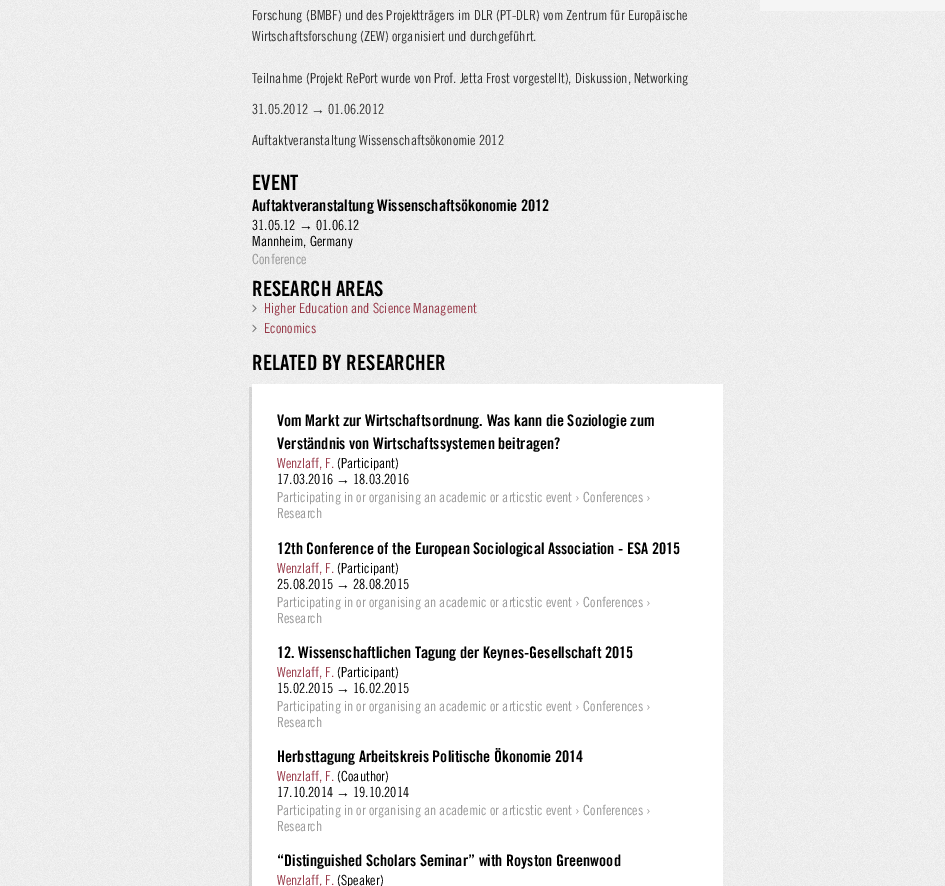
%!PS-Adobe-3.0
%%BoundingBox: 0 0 945 886
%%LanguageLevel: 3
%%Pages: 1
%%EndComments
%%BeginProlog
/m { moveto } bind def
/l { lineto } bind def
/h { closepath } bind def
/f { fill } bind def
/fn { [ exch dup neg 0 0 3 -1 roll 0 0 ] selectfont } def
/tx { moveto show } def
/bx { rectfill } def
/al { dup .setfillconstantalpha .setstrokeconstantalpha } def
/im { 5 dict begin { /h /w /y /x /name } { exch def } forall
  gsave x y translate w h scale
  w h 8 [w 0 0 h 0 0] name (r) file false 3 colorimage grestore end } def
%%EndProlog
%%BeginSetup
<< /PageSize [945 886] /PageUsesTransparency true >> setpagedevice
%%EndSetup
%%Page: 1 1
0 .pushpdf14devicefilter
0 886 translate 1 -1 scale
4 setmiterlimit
1 setgray
0 0 945 886 bx
(image0.raw) 0 0 945 886 im
0.961 setgray
760 0 185 11 bx
/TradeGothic-Regular 14 fn
0.2 setgray
(Forschung \(BMBF\) und des Projektträgers im DLR \(PT-DLR\) vom Zentrum für Europäische) 252 20 tx
(Wirtschaftsforschung \(ZEW\) organisiert und durchgeführt.) 252 41 tx
(Teilnahme \(Projekt RePort wurde von Prof. Jetta Frost vorgestellt\), Diskussion, Networking) 252 83 tx
(31.05.2012) 252 114 tx
/LiberationSans-Regular 14 fn
(→) 311 114 tx
/TradeGothic-Regular 14 fn
(01.06.2012) 328 114 tx
(Auftaktveranstaltung Wissenschaftsökonomie 2012) 252 145 tx
/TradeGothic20-Bold 21 fn
0 setgray
(EVENT) 252 190 tx
/TradeGothic20-Bold 16 fn
(Auftaktveranstaltung Wissenschaftsökonomie 2012) 252 211 tx
/TradeGothic-Regular 14 fn
(31.05.12) 252 230 tx
/LiberationSans-Regular 14 fn
(→) 299 230 tx
/TradeGothic-Regular 14 fn
(01.06.12) 316 230 tx
(Mannheim, Germany) 252 246 tx
0.6 setgray
(Conference) 252 264 tx
/TradeGothic20-Bold 21 fn
0 setgray
(RESEARCH AREAS) 252 296 tx
(image1.raw) 252 304 5 9 im
/TradeGothic-Regular 14 fn
0.592 0.224 0.282 setrgbcolor
(Higher Education and Science Management) 264 313 tx
(image2.raw) 252 324 5 9 im
(Economics) 264 333 tx
/TradeGothic20-Bold 21 fn
0 setgray
(RELATED BY RESEARCHER) 252 370 tx
0.1 al
249 387 m 249 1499 l 720 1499 l 720 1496 l 252 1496 l 252 387 l h f
1 al
1 setgray
252 384 471 502 bx
/TradeGothic20-Bold 16 fn
0 setgray
(Vom Markt zur Wirtschaftsordnung. Was kann die Soziologie zum) 277 426 tx
(Verständnis von Wirtschaftssystemen beitragen?) 277 449 tx
/TradeGothic-Regular 14 fn
0.592 0.224 0.282 setrgbcolor
(Wenzlaff, F.) 277 468 tx
0 setgray
(\(Participant\)) 337 468 tx
(17.03.2016) 277 484 tx
/LiberationSans-Regular 14 fn
(→) 336 484 tx
/TradeGothic-Regular 14 fn
(18.03.2016) 353 484 tx
0.6 setgray
(Participating in or organising an academic or articstic event › Conferences ›) 277 502 tx
(Research) 277 518 tx
/TradeGothic20-Bold 16 fn
0 setgray
(12th Conference of the European Sociological Association - ESA 2015) 277 554 tx
/TradeGothic-Regular 14 fn
0.592 0.224 0.282 setrgbcolor
(Wenzlaff, F.) 277 573 tx
0 setgray
(\(Participant\)) 337 573 tx
(25.08.2015) 277 589 tx
/LiberationSans-Regular 14 fn
(→) 336 589 tx
/TradeGothic-Regular 14 fn
(28.08.2015) 353 589 tx
0.6 setgray
(Participating in or organising an academic or articstic event › Conferences ›) 277 607 tx
(Research) 277 623 tx
/TradeGothic20-Bold 16 fn
0 setgray
(12. Wissenschaftlichen Tagung der Keynes-Gesellschaft 2015) 277 658 tx
/TradeGothic-Regular 14 fn
0.592 0.224 0.282 setrgbcolor
(Wenzlaff, F.) 277 677 tx
0 setgray
(\(Participant\)) 337 677 tx
(15.02.2015) 277 693 tx
/LiberationSans-Regular 14 fn
(→) 336 693 tx
/TradeGothic-Regular 14 fn
(16.02.2015) 353 693 tx
0.6 setgray
(Participating in or organising an academic or articstic event › Conferences ›) 277 711 tx
(Research) 277 727 tx
/TradeGothic20-Bold 16 fn
0 setgray
(Herbsttagung Arbeitskreis Politische Ökonomie 2014) 277 762 tx
/TradeGothic-Regular 14 fn
0.592 0.224 0.282 setrgbcolor
(Wenzlaff, F.) 277 781 tx
0 setgray
(\(Coauthor\)) 337 781 tx
(17.10.2014) 277 797 tx
/LiberationSans-Regular 14 fn
(→) 336 797 tx
/TradeGothic-Regular 14 fn
(19.10.2014) 353 797 tx
0.6 setgray
(Participating in or organising an academic or articstic event › Conferences ›) 277 815 tx
(Research) 277 831 tx
/TradeGothic20-Bold 16 fn
0 setgray
(“Distinguished Scholars Seminar” with Royston Greenwood) 277 866 tx
/TradeGothic-Regular 14 fn
0.592 0.224 0.282 setrgbcolor
(Wenzlaff, F.) 277 885 tx
0 setgray
(\(Speaker\)) 337 885 tx
.poppdf14devicefilter showpage
%%EOF
